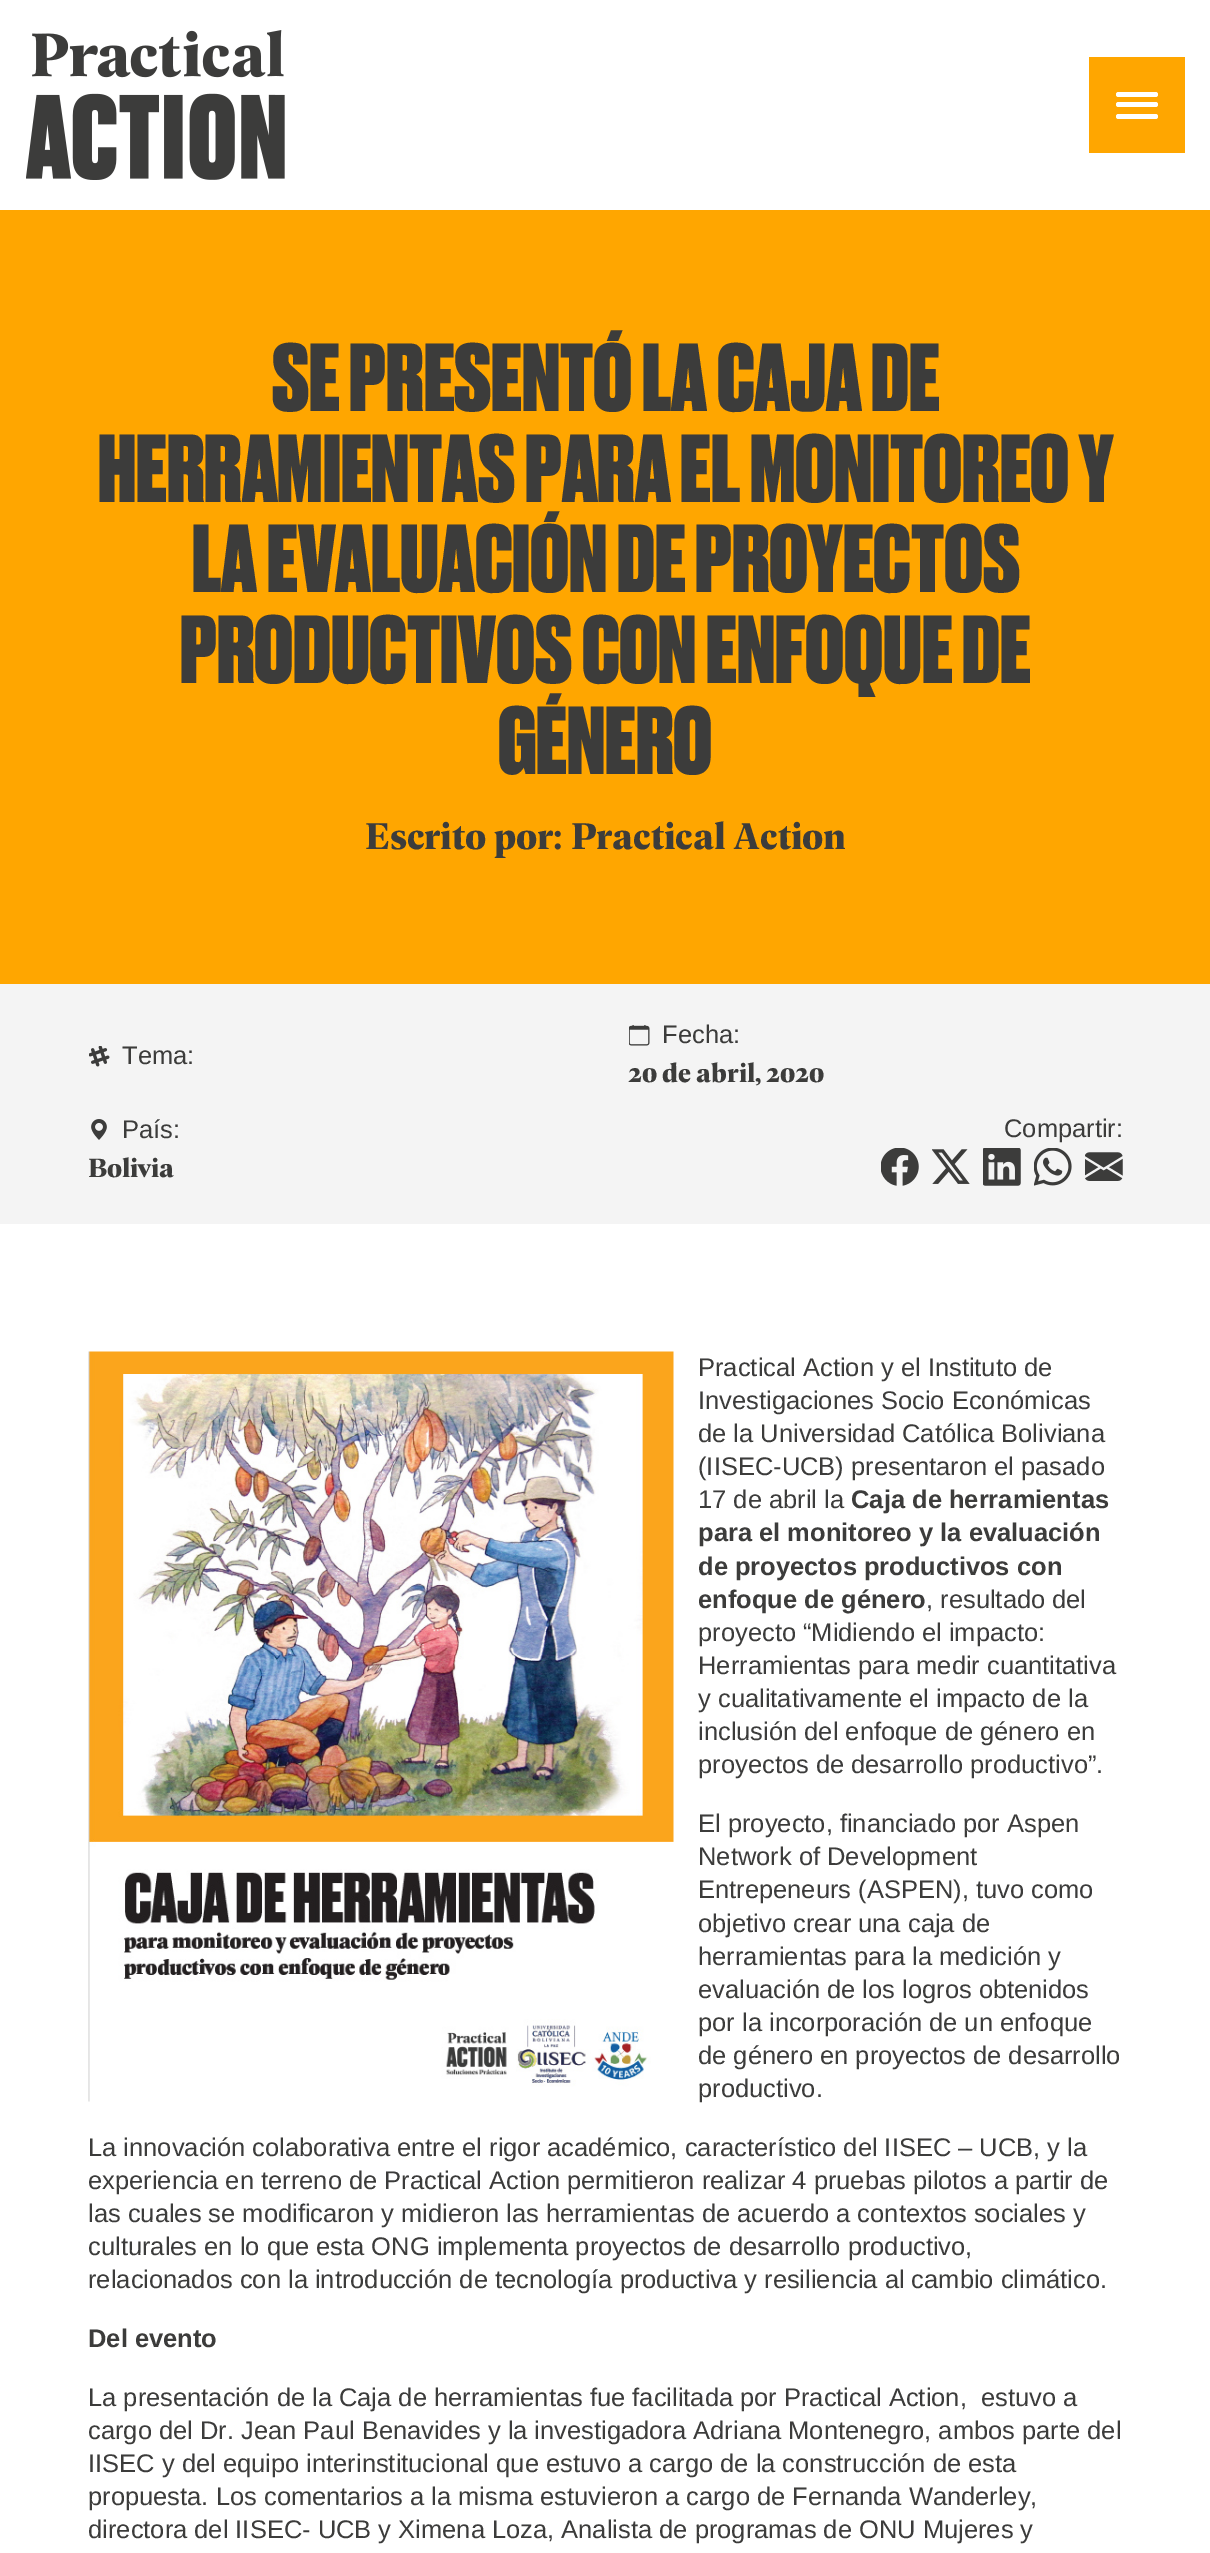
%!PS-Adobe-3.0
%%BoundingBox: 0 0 1210 2553
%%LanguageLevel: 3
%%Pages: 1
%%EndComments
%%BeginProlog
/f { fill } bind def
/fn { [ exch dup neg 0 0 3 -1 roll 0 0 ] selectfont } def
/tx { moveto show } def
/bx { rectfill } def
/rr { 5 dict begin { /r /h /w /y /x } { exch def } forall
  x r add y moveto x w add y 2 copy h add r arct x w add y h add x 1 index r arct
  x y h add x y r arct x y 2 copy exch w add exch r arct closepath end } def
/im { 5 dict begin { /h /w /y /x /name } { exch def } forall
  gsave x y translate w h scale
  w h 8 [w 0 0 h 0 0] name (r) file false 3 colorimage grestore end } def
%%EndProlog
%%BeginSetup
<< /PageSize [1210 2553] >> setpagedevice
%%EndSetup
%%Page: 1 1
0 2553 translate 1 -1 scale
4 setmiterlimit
1 setgray
0 0 1210 2553 bx
(image0.raw) 26 30 259 150 im
1 0.651 0 setrgbcolor
1089 57 96 96 bx
1 setgray
1116 92 42 5 2.5 rr f
1116 102 42 5 2.5 rr f
1116 114 42 5 2.5 rr f
1 0.651 0 setrgbcolor
0 210 1210 774 bx
/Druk-Black 90.75 fn
0.235 0.235 0.231 setrgbcolor
(SE PRESENTÓ LA CAJA DE) 272 411 tx
(HERRAMIENTAS PARA EL MONITOREO Y) 98 502 tx
(LA EVALUACIÓN DE PROYECTOS) 192 592 tx
(PRODUCTIVOS CON ENFOQUE DE) 180 683 tx
(GÉNERO) 498 774 tx
/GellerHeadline-Bold 39.75 fn
(Escrito por: Practical Action) 365 849 tx
0.957 setgray
0 984 1210 240 bx
(image1.raw) 89 1046 21 21 im
/LiberationSans-Regular 25.5 fn
0.235 0.235 0.231 setrgbcolor
(Tema:) 122 1064 tx
(image2.raw) 629 1025 21 21 im
(Fecha:) 662 1043 tx
/GellerHeadline-Bold 28.25 fn
(20 de abril, 2020) 628 1082 tx
(image3.raw) 91 1119 16 21 im
/LiberationSans-Regular 25.5 fn
(País:) 122 1138 tx
/GellerHeadline-Bold 28.25 fn
(Bolivia) 88 1177 tx
/LiberationSans-Regular 25.5 fn
(Compartir:) 1004 1137 tx
(image4.raw) 881 1148 38 38 im
(image5.raw) 932 1149 38 35 im
(image6.raw) 983 1148 38 38 im
(image7.raw) 1034 1148 38 38 im
(image8.raw) 1085 1152 38 29 im
(image9.raw) 88 1351 586 751 im
(Practical Action y el Instituto de) 698 1376 tx
(Investigaciones Socio Económicas) 698 1409 tx
(de la Universidad Católica Boliviana) 698 1442 tx
(\(IISEC-UCB\) presentaron el pasado) 698 1475 tx
(17 de abril la) 698 1508 tx
/LiberationSans-Bold 25.5 fn
(Caja de herramientas) 851 1508 tx
(para el monitoreo y la evaluación) 698 1541 tx
(de proyectos productivos con) 698 1575 tx
(enfoque de género) 698 1608 tx
/LiberationSans-Regular 25.5 fn
(, resultado del) 926 1608 tx
(proyecto “Midiendo el impacto:) 698 1641 tx
(Herramientas para medir cuantitativa) 698 1674 tx
(y cualitativamente el impacto de la) 698 1707 tx
(inclusión del enfoque de género en) 698 1740 tx
(proyectos de desarrollo productivo”.) 698 1773 tx
(El proyecto, financiado por Aspen) 698 1832 tx
(Network of Development) 698 1865 tx
(Entrepeneurs \(ASPEN\), tuvo como) 698 1898 tx
(objetivo crear una caja de) 698 1932 tx
(herramientas para la medición y) 698 1965 tx
(evaluación de los logros obtenidos) 698 1998 tx
(por la incorporación de un enfoque) 698 2031 tx
(de género en proyectos de desarrollo) 698 2064 tx
(productivo.) 698 2097 tx
(La innovación colaborativa entre el rigor académico, característico del IISEC – UCB, y la) 88 2156 tx
(experiencia en terreno de Practical Action permitieron realizar 4 pruebas pilotos a partir de) 88 2189 tx
(las cuales se modificaron y midieron las herramientas de acuerdo a contextos sociales y) 88 2222 tx
(culturales en lo que esta ONG implementa proyectos de desarrollo productivo,) 88 2255 tx
(relacionados con la introducción de tecnología productiva y resiliencia al cambio climático.) 88 2288 tx
/LiberationSans-Bold 25.5 fn
(Del evento) 88 2347 tx
/LiberationSans-Regular 25.5 fn
(La presentación de la Caja de herramientas fue facilitada por Practical Action,  estuvo a) 88 2406 tx
(cargo del Dr. Jean Paul Benavides y la investigadora Adriana Montenegro, ambos parte del) 88 2439 tx
(IISEC y del equipo interinstitucional que estuvo a cargo de la construcción de esta) 88 2472 tx
(propuesta. Los comentarios a la misma estuvieron a cargo de Fernanda Wanderley,) 88 2505 tx
(directora del IISEC- UCB y Ximena Loza, Analista de programas de ONU Mujeres y) 88 2538 tx
showpage
%%EOF
